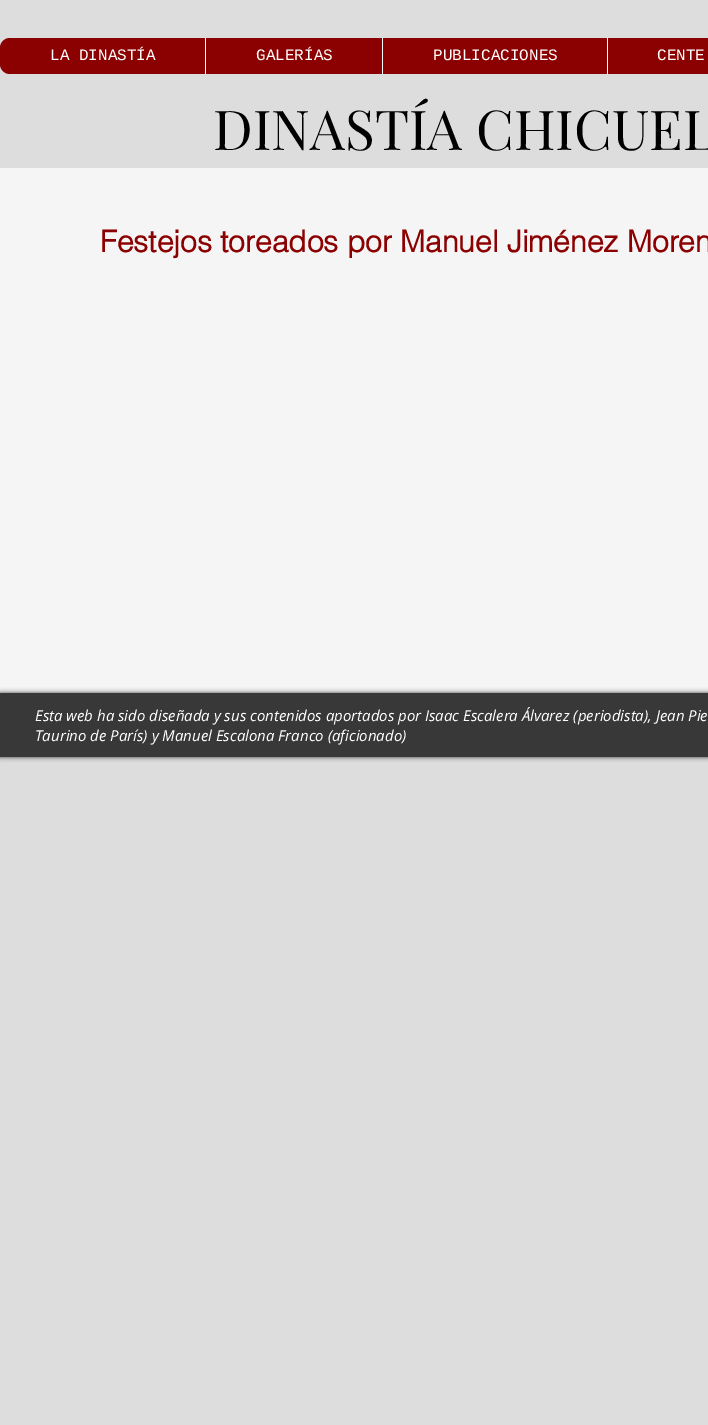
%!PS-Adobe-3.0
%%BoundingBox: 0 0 708 1425
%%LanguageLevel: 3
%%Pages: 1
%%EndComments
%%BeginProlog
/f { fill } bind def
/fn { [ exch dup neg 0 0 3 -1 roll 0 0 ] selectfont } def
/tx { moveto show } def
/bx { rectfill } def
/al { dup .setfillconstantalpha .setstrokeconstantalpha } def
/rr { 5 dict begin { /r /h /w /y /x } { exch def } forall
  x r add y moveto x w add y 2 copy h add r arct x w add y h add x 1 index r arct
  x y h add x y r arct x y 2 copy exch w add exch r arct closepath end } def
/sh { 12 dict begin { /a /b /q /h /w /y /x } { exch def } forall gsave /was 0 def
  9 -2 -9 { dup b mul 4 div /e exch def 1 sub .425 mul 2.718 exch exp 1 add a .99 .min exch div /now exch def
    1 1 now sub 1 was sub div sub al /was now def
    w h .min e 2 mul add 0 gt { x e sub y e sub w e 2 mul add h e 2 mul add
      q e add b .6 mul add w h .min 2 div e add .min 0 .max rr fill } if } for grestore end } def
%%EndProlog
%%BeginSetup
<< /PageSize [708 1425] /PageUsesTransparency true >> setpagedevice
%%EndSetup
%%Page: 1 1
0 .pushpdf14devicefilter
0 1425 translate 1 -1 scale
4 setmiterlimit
0.867 setgray
0 0 708 1425 bx
0.545 0 0 setrgbcolor
0 38 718 36 10 rr f
/LiberationMono-Regular 16 fn
1 setgray
(LA DINASTÍA) 50 60 tx
205 38 1 36 bx
(GALERÍAS) 256 60 tx
382 38 1 36 bx
(PUBLICACIONES) 433 60 tx
607 38 1 36 bx
(CENTE) 657 60 tx
/PlayfairDisplay-Regular 55 fn
0 setgray
(DINASTÍA CHICUEL) 213 150 tx
0.961 setgray
0 168 708 525 bx
/helvetica-Bold 30 fn
0.545 0 0 setrgbcolor
(Festejos toreados por Manuel Jiménez Moren) 100 252 tx
0 setgray
0 693 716 64 0 2.5 0.7 sh
0.22 setgray
0 693 708 64 bx
/OpenSans-Italic 15 fn
1 setgray
(Esta web ha sido diseñada y sus contenidos aportados por Isaac Escalera Álvarez \(periodista\), Jean Pie) 35 721 tx
(Taurino de París\) y Manuel Escalona Franco \(aficionado\)) 35 741 tx
.poppdf14devicefilter showpage
%%EOF
